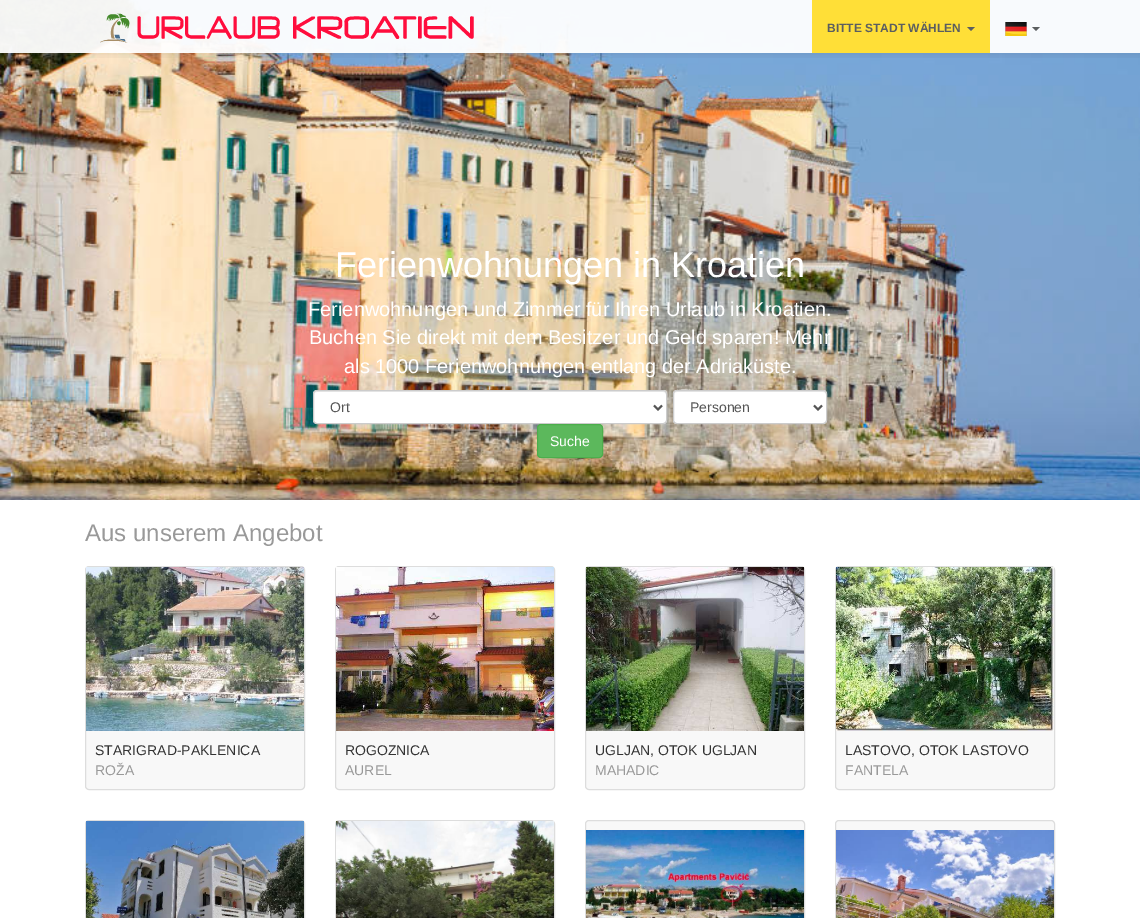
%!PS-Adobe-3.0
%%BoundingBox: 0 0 1140 918
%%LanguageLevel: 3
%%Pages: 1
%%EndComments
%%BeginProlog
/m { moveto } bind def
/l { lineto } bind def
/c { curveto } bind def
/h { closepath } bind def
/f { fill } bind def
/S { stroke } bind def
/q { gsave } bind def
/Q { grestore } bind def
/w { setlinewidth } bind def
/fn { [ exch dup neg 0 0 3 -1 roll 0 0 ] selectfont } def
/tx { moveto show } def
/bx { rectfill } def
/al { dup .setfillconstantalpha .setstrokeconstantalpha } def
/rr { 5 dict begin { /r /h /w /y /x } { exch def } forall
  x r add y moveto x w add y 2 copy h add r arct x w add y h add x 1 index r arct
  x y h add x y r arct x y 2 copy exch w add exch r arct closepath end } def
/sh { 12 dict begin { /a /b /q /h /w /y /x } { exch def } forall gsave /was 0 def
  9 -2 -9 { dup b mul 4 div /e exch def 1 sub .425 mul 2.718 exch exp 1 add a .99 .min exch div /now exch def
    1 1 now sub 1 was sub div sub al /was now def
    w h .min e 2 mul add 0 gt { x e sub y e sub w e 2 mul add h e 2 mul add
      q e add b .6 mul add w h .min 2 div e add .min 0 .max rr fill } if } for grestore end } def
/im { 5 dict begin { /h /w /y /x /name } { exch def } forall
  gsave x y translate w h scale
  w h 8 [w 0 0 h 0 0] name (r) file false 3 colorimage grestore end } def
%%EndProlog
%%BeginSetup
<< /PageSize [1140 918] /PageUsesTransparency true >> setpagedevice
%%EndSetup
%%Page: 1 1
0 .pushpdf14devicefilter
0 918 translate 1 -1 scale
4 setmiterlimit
1 setgray
0 0 1140 918 bx
(image2.raw) 0 0 1140 500 im
q
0 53 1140 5 rectclip
0 setgray
0 1 1140 53 0 5 0.1 sh
Q
0.95 al
0 0 1140 53 bx
1 al
(image0.raw) 100 13 374 30 im
1 0.875 0.216 setrgbcolor
812 0 178 53 bx
/LiberationSans-Bold 12 fn
0.357 0.369 0.376 setrgbcolor
(BITTE STADT WÄHLEN) 827 32 tx
967 27 m 975 27 l 971 31 l h f
(image1.raw) 1005 22 22 14 im
1032 27 m 1040 27 l 1036 31 l h f
/LiberationSans-Regular 36 fn
1 setgray
(Ferienwohnungen in Kroatien) 335 277 tx
/LiberationSans-Regular 20 fn
(Ferienwohnungen und Zimmer für Ihren Urlaub in Kroatien.) 308 316 tx
(Buchen Sie direkt mit dem Besitzer und Geld sparen! Mehr) 309 344 tx
(als 1000 Ferienwohnungen entlang der Adriaküste.) 344 373 tx
313 390 354 34 4 rr f
0.925 setgray
317 392 m 663 392 l 665 392 666 393 666 395 c 666 393 665 391 663 391 c 317 391 l 315 392 l 314 395 l 314 393 315 392 317 392 c h f
0.8 setgray
313.5 390.5 353 33 3.5 rr S
0.333 setgray
2 w
654 405.5 m 658 409.5 l 662 405.5 l S
/LiberationSans-Regular 14 fn
(Ort) 330 412 tx
1 setgray
673 390 154 34 4 rr f
0.925 setgray
677 392 m 823 392 l 825 392 826 393 826 395 c 826 393 826 392 824 391 c 701 391 l 694 391 674 386 674 395 c 674 393 675 392 677 392 c h f
0.8 setgray
1 w
673.5 390.5 153 33 3.5 rr S
0.333 setgray
2 w
814 405.5 m 818 409.5 l 822 405.5 l S
(Personen) 690 412 tx
0.361 0.722 0.361 setrgbcolor
537.5 424.5 65 33 3.5 rr q f Q
0.298 0.682 0.298 setrgbcolor
1 w
S
1 setgray
(Suche) 550 446 tx
/LiberationSans-Regular 24 fn
0.6 setgray
(Aus unserem Angebot) 85 541 tx
0.973 setgray
85.5 566.5 219 223 3.5 rr q f Q
0.867 setgray
S
(image3.raw) 86 567 218 164 im
/LiberationSans-Regular 14 fn
0.2 setgray
(STARIGRAD-PAKLENICA) 95 755 tx
0.6 setgray
(ROŽA) 95 775 tx
0.973 setgray
335.5 566.5 219 223 3.5 rr q f Q
0.867 setgray
S
(image4.raw) 336 567 218 164 im
0.2 setgray
(ROGOZNICA) 345 755 tx
0.6 setgray
(AUREL) 345 775 tx
0.973 setgray
585.5 566.5 219 223 3.5 rr q f Q
0.867 setgray
S
(image5.raw) 586 567 218 164 im
0.2 setgray
(UGLJAN, OTOK UGLJAN) 595 755 tx
0.6 setgray
(MAHADIC) 595 775 tx
0.973 setgray
835.5 566.5 219 223 3.5 rr q f Q
0.867 setgray
S
(image6.raw) 836 567 218 164 im
0.2 setgray
(LASTOVO, OTOK LASTOVO) 845 755 tx
0.6 setgray
(FANTELA) 845 775 tx
0.867 setgray
85.5 820.5 219 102 3.5 rr S
(image7.raw) 86 821 218 97 im
335.5 820.5 219 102 3.5 rr S
(image8.raw) 336 821 218 97 im
0.973 setgray
585.5 820.5 219 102 3.5 rr q f Q
0.867 setgray
S
(image9.raw) 586 830 218 88 im
0.973 setgray
835.5 820.5 219 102 3.5 rr q f Q
0.867 setgray
S
(image10.raw) 836 830 218 88 im
.poppdf14devicefilter showpage
%%EOF
